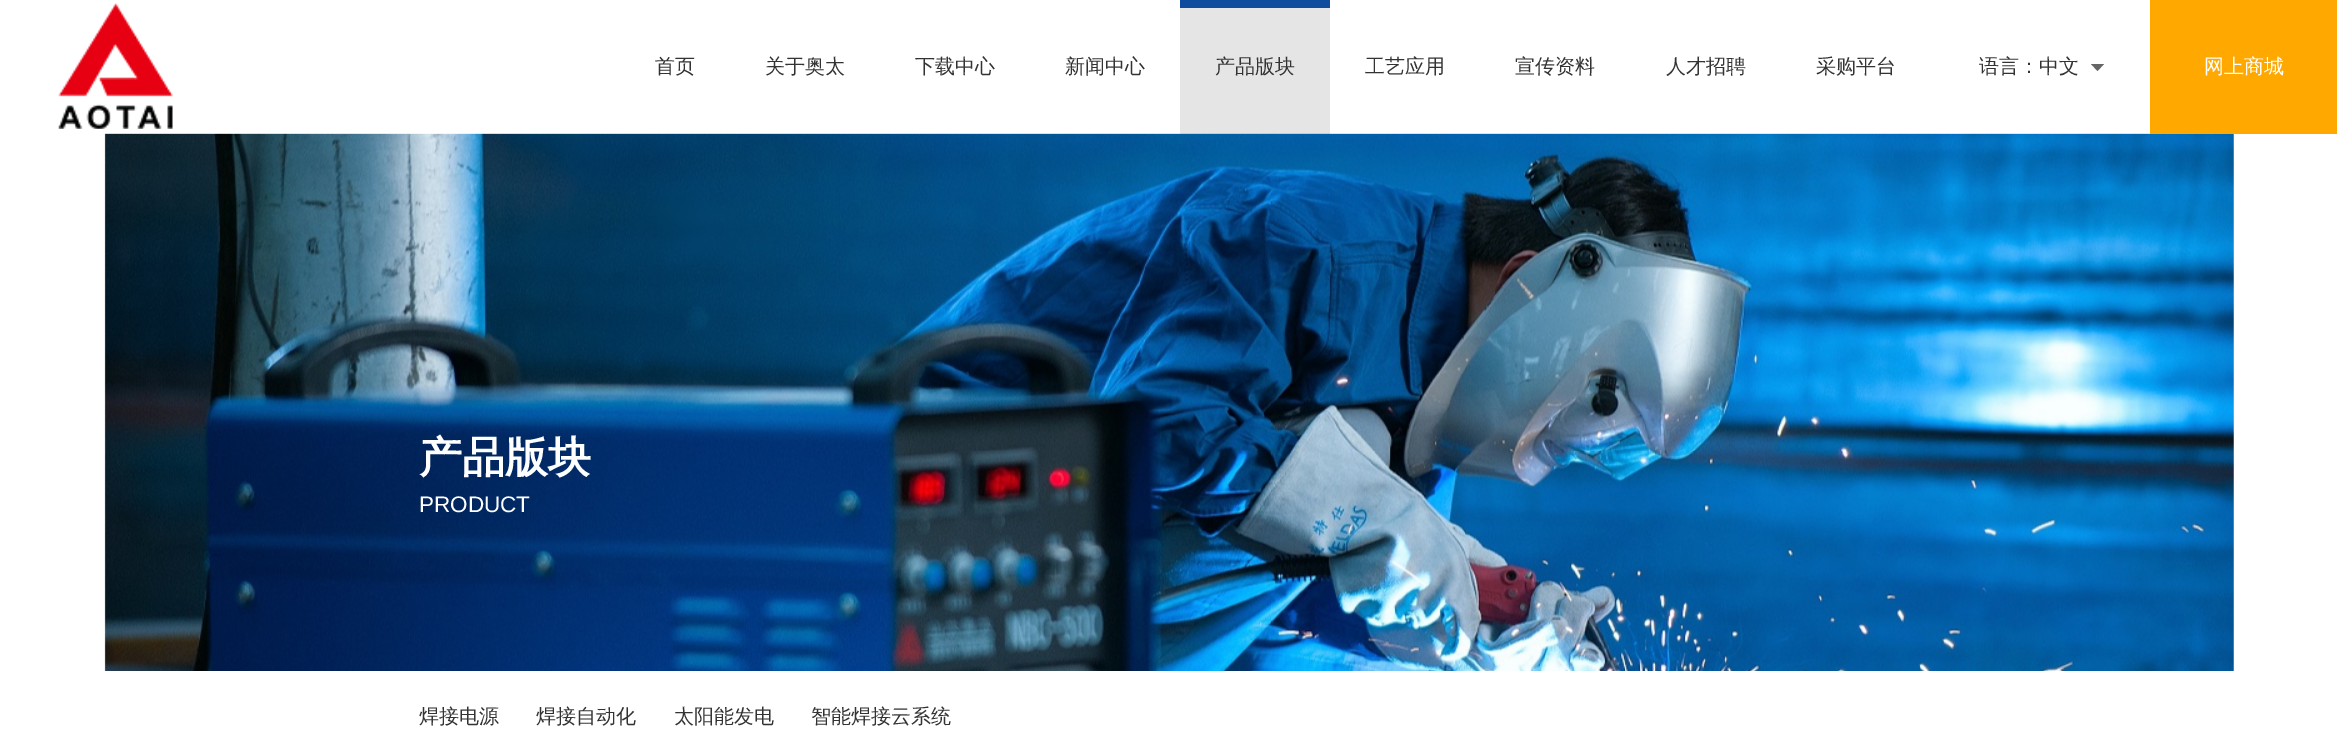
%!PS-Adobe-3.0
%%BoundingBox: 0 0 2337 729
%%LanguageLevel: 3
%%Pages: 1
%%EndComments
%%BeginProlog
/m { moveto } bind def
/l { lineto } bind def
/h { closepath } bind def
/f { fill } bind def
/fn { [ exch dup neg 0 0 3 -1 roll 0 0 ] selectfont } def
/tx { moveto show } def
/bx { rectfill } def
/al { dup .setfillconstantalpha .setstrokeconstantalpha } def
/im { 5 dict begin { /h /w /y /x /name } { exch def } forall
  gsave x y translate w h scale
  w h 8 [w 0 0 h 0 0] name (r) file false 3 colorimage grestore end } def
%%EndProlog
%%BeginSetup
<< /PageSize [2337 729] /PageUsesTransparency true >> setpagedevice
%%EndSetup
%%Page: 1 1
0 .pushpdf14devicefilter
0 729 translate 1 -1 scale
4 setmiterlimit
1 setgray
0 0 2337 729 bx
(image1.raw) 104 133 2130 538 im
0.3 al
105 133 2045 1 bx
1 al
(image0.raw) 58 3 115 126 im
/WenQuanYiZenHei-Medium 20 fn
0.2 setgray
(首页) 655 73 tx
(关于奥太) 765 73 tx
(下载中心) 915 73 tx
(新闻中心) 1065 73 tx
0.1 al
0 setgray
1180 8 150 126 bx
1 al
0.059 0.298 0.616 setrgbcolor
1180 0 150 8 bx
0.2 setgray
(产品版块) 1215 73 tx
(工艺应用) 1365 73 tx
(宣传资料) 1515 73 tx
(人才招聘) 1666 73 tx
(采购平台) 1816 73 tx
0.1 al
1 setgray
1931 133 1 1 bx
1 al
0.2 setgray
(语言：中文) 1979 73 tx
0.4 setgray
2091 64 m 2104 64 l 2097.5 71 l h f
1 0.659 0 setrgbcolor
2150 0 187 134 bx
1 setgray
(网上商城) 2204 73 tx
/WenQuanYiZenHei-Bold 43 fn
(产品版块) 419 472 tx
/LiberationSans-Regular 22.5 fn
(PRODUCT) 419 512 tx
/WenQuanYiZenHei-Medium 20 fn
0.2 setgray
(焊接电源) 419 723 tx
(焊接自动化) 536 723 tx
(太阳能发电) 674 723 tx
(智能焊接云系统) 811 723 tx
.poppdf14devicefilter showpage
%%EOF
